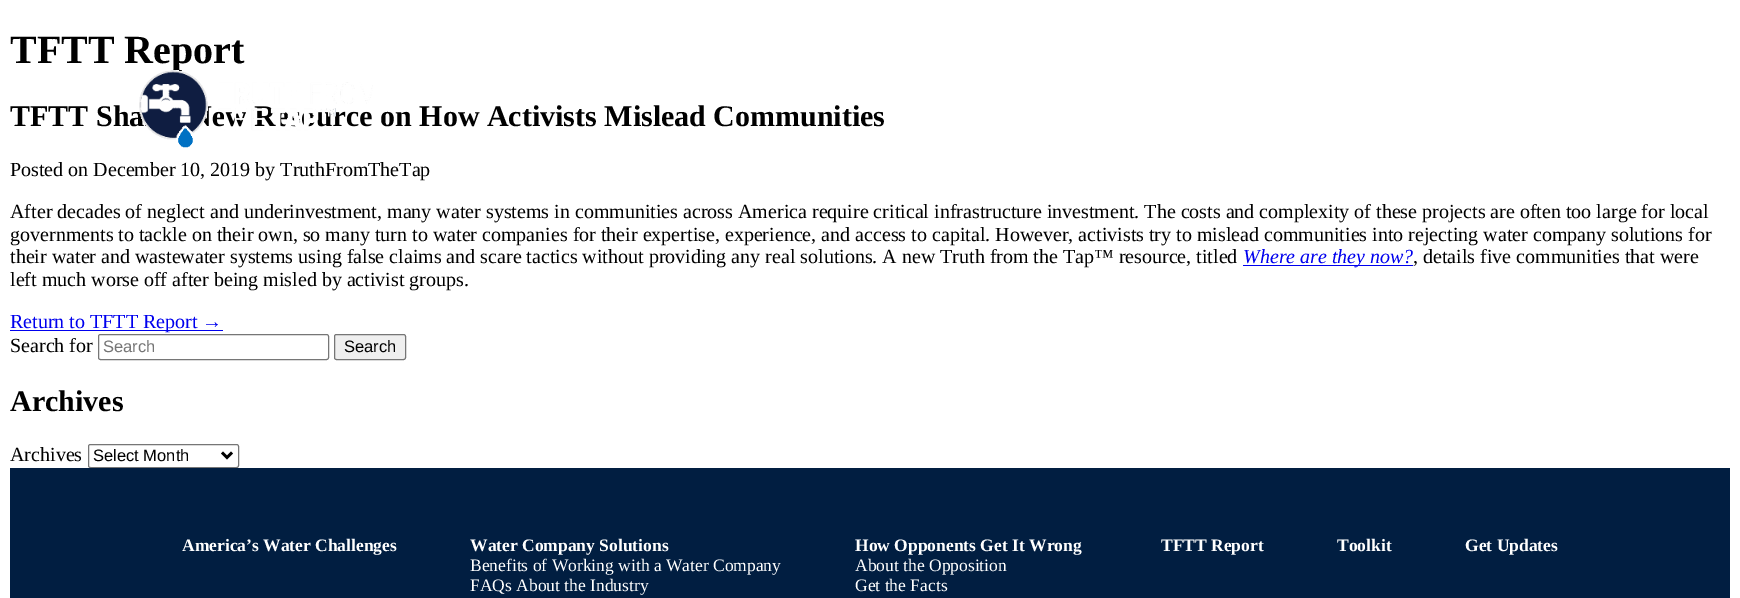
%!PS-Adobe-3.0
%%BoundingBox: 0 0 1740 598
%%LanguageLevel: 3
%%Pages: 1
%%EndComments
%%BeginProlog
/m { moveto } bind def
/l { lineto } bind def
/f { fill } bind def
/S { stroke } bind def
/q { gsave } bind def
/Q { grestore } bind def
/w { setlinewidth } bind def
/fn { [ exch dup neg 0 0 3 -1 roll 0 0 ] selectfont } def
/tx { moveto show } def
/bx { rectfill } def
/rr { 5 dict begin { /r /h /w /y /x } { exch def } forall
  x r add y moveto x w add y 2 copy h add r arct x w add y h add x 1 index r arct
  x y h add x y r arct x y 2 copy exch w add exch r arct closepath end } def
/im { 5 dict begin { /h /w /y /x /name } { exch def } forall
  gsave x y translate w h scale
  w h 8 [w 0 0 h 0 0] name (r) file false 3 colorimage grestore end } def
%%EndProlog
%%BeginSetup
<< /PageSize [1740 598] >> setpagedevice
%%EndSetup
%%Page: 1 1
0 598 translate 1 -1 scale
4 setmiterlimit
1 setgray
0 0 1740 598 bx
/LiberationSerif-Bold 40 fn
0 setgray
(TFTT Report) 10 63 tx
/LiberationSerif-Bold 30 fn
(TFTT Sha) 10 126 tx
(e) 212 126 tx
(ce on How Activists Mislead Communities) 346 126 tx
/LiberationSerif-Regular 20 fn
(Posted on December 10, 2019 by TruthFromTheTap) 10 176 tx
(After decades of neglect and underinvestment, many water systems in communities across America require critical infrastructure investment. The costs and complexity of these projects are often too large for local) 10 218 tx
(governments to tackle on their own, so many turn to water companies for their expertise, experience, and access to capital. However, activists try to mislead communities into rejecting water company solutions for) 10 241 tx
(their water and wastewater systems using false claims and scare tactics without providing any real solutions. A new Truth from the Tap™ resource, titled) 10 263 tx
0 0 0.933 setrgbcolor
1243 265 170 1 bx
/LiberationSerif-Italic 20 fn
(Where are they now?) 1243 263 tx
/LiberationSerif-Regular 20 fn
0 setgray
(, details five communities that were) 1413 263 tx
(left much worse off after being misled by activist groups.) 10 286 tx
0 0 0.933 setrgbcolor
10 330 213 1 bx
(Return to TFTT Report →) 10 328 tx
0 setgray
(Search for) 10 352 tx
0.463 setgray
98.5 334.5 230 25 2 rr S
/LiberationSans-Regular 16.5 fn
0.459 setgray
(Search) 103 352 tx
0.937 setgray
334.5 334.5 71 25 2 rr q f Q
0.463 setgray
S
0 setgray
(Search) 344 352 tx
/LiberationSerif-Bold 30 fn
(Archives) 10 411 tx
/LiberationSerif-Regular 20 fn
(Archives) 10 461 tx
0.463 setgray
88.5 444.5 150 23 2 rr S
0 setgray
2.5 w
222 452.5 m 227 457.5 l 232 452.5 l S
/LiberationSans-Regular 16.5 fn
(Select Month) 93 461 tx
(image0.raw) 139 70 234 78 im
0.004 0.118 0.255 setrgbcolor
10 468 1720 130 bx
/LiberationSerif-Bold 17.5 fn
1 setgray
(America’s Water Challenges) 182 551 tx
(Water Company Solutions) 470 551 tx
/LiberationSerif-Regular 17.5 fn
(Benefits of Working with a Water Company) 470 571 tx
(FAQs About the Industry) 470 591 tx
/LiberationSerif-Bold 17.5 fn
(How Opponents Get It Wrong) 855 551 tx
/LiberationSerif-Regular 17.5 fn
(About the Opposition) 855 571 tx
(Get the Facts) 855 591 tx
/LiberationSerif-Bold 17.5 fn
(TFTT Report) 1161 551 tx
(Toolkit) 1337 551 tx
(Get Updates) 1465 551 tx
showpage
%%EOF
